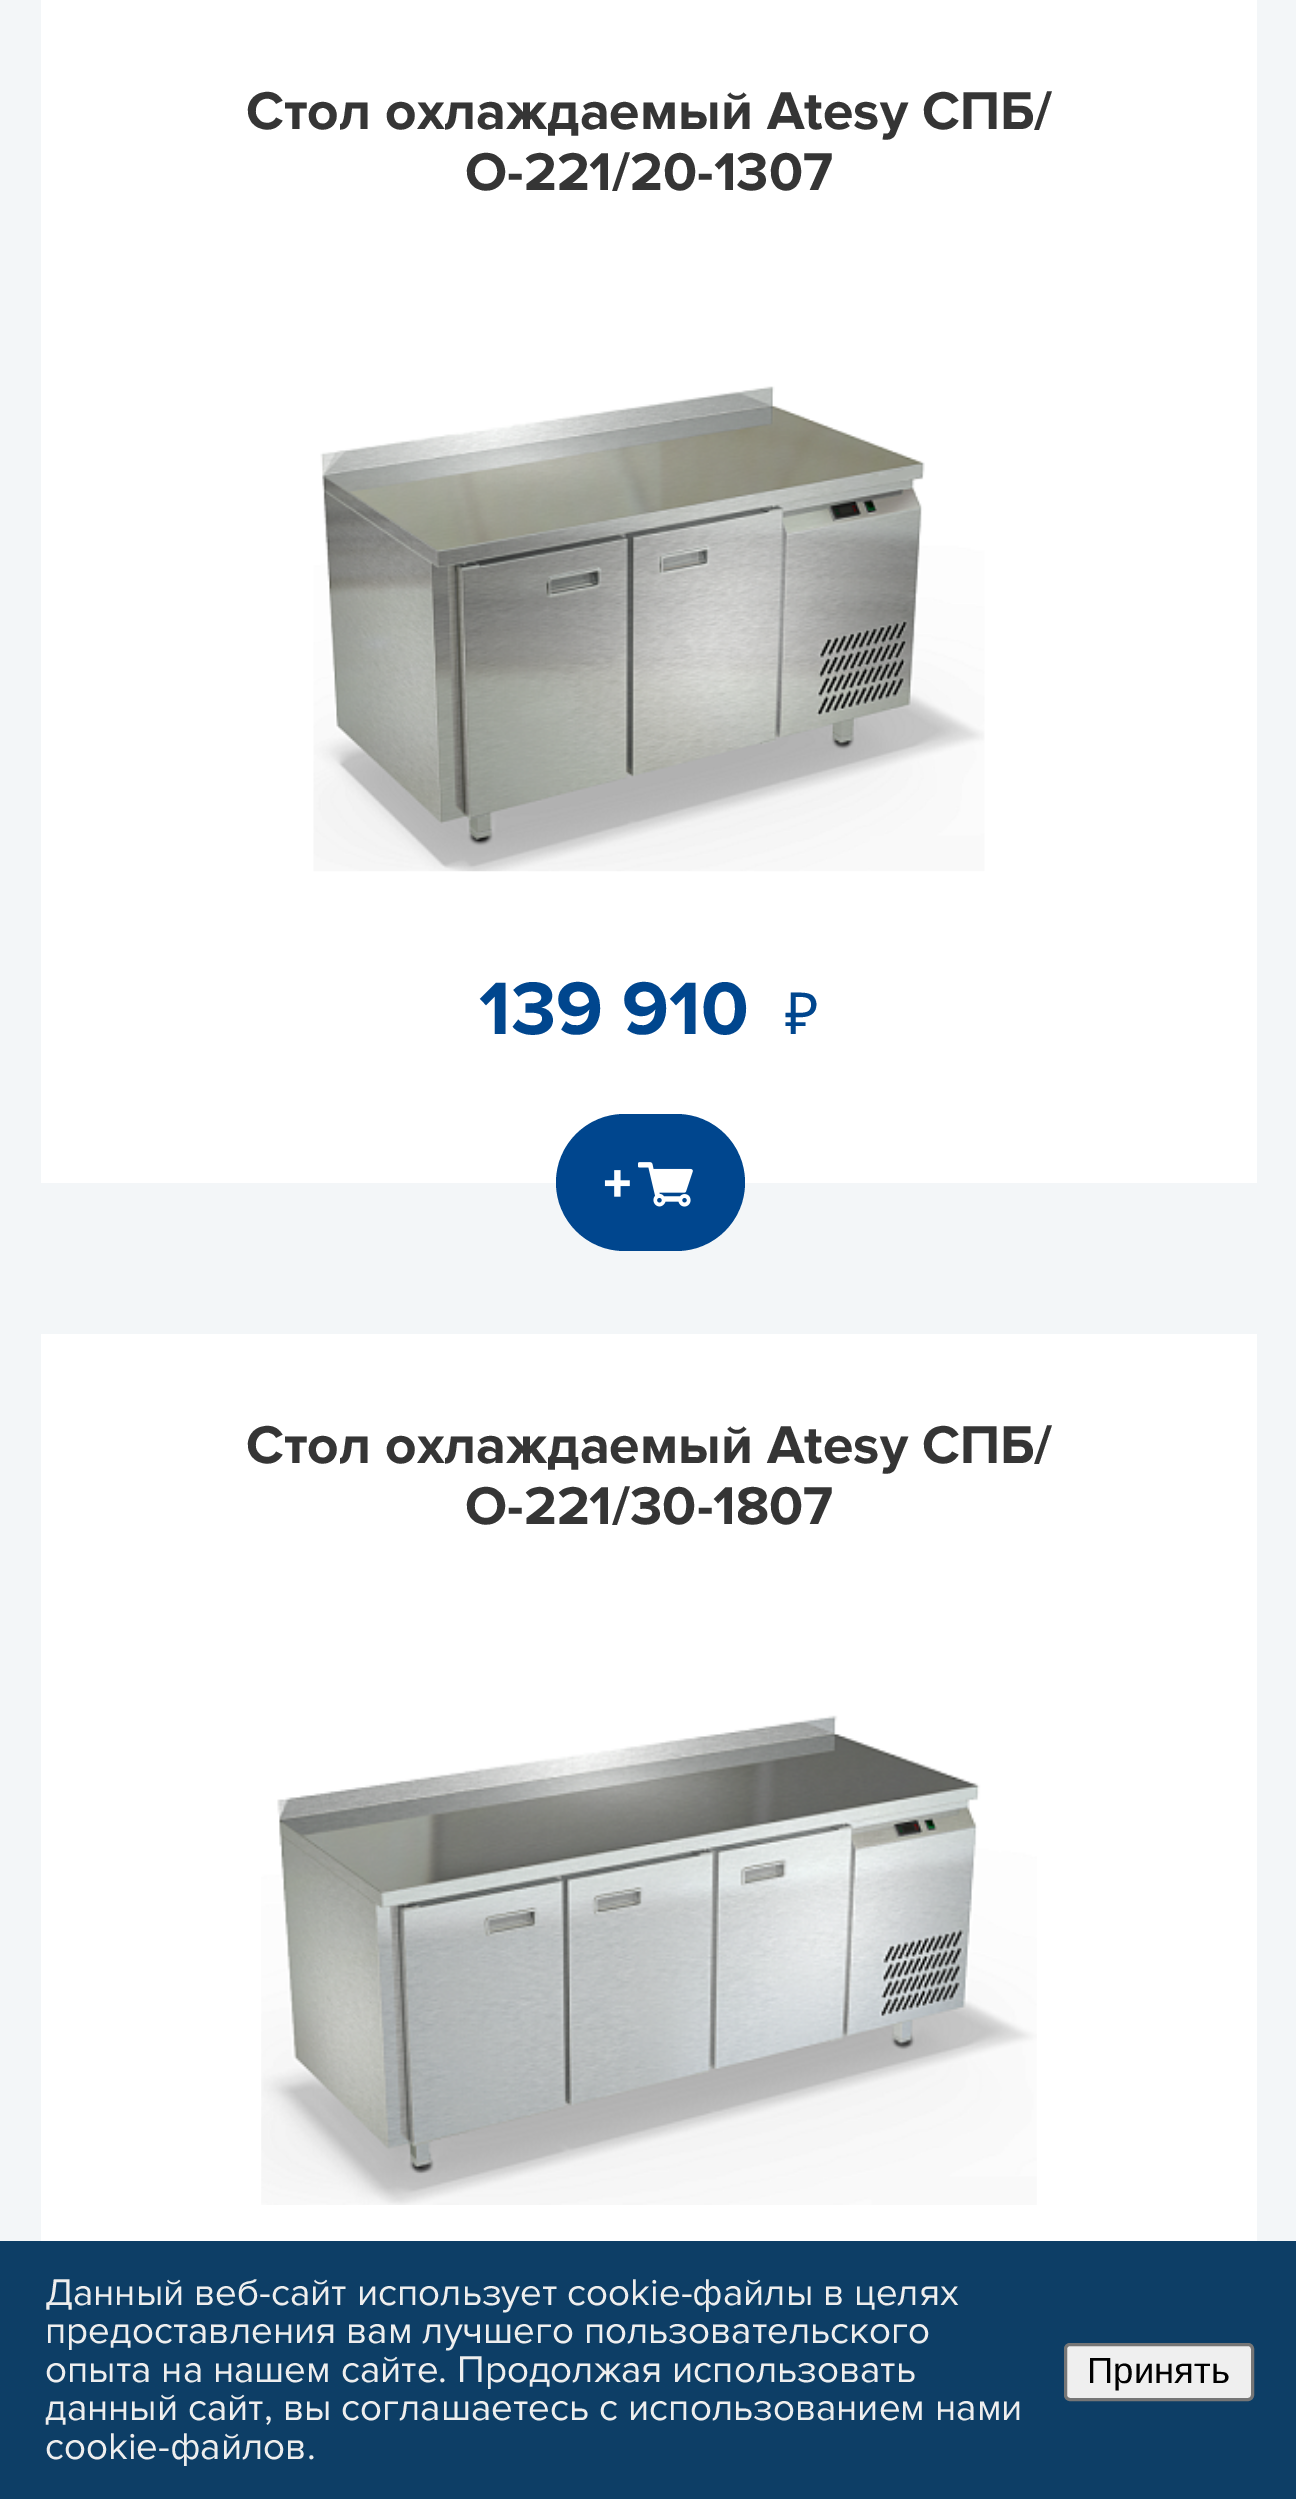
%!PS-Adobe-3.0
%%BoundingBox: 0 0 1296 2499
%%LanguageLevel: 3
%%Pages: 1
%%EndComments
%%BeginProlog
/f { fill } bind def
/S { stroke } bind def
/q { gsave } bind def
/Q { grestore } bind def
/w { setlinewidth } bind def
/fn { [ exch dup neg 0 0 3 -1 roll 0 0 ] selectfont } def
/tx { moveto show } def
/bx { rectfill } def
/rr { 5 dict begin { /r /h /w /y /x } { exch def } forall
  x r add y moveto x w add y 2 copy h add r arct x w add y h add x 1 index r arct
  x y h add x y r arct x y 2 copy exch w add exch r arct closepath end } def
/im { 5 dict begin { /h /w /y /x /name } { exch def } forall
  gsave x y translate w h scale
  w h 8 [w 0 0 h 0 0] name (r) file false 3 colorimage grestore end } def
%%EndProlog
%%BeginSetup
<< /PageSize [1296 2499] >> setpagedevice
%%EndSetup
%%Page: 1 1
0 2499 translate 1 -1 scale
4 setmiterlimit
0.953 0.965 0.973 setrgbcolor
0 0 1296 2499 bx
1 setgray
41 0 1216 1183 bx
/ProximaNova-Bold 55 fn
0.208 setgray
(Стол охлаждаемый Atesy СПБ/) 246 129 tx
(О-221/20-1307) 465 190 tx
(image0.raw) 313 386 672 486 im
/ProximaNova-Bold 77 fn
0 0.275 0.557 setrgbcolor
(139 910) 479 1034 tx
/NotoSans-Regular 58 fn
(₽) 785 1034 tx
556 1114 189 137 68.5 rr f
(image1.raw) 604 1162 89 45 im
1 setgray
41 1334 1216 907 bx
/ProximaNova-Bold 55 fn
0.208 setgray
(Стол охлаждаемый Atesy СПБ/) 246 1463 tx
(О-221/30-1807) 465 1524 tx
(image2.raw) 261 1715 776 490 im
0.051 0.243 0.4 setrgbcolor
0 2241 1296 258 bx
/ProximaNova-Regular 38.5 fn
0.933 setgray
(Данный веб-сайт использует cookie-файлы в целях) 45 2305 tx
(предоставления вам лучшего пользовательского) 45 2343 tx
(опыта на нашем сайте. Продолжая использовать) 45 2382 tx
(данный сайт, вы соглашаетесь с использованием нами) 45 2420 tx
(cookie-файлов.) 45 2459 tx
0.937 setgray
1065.5 2344.5 187 55 4.5 rr q f Q
0.463 setgray
3 w
S
/LiberationSans-Regular 36.5 fn
0 setgray
(Принять) 1087 2383 tx
showpage
%%EOF
